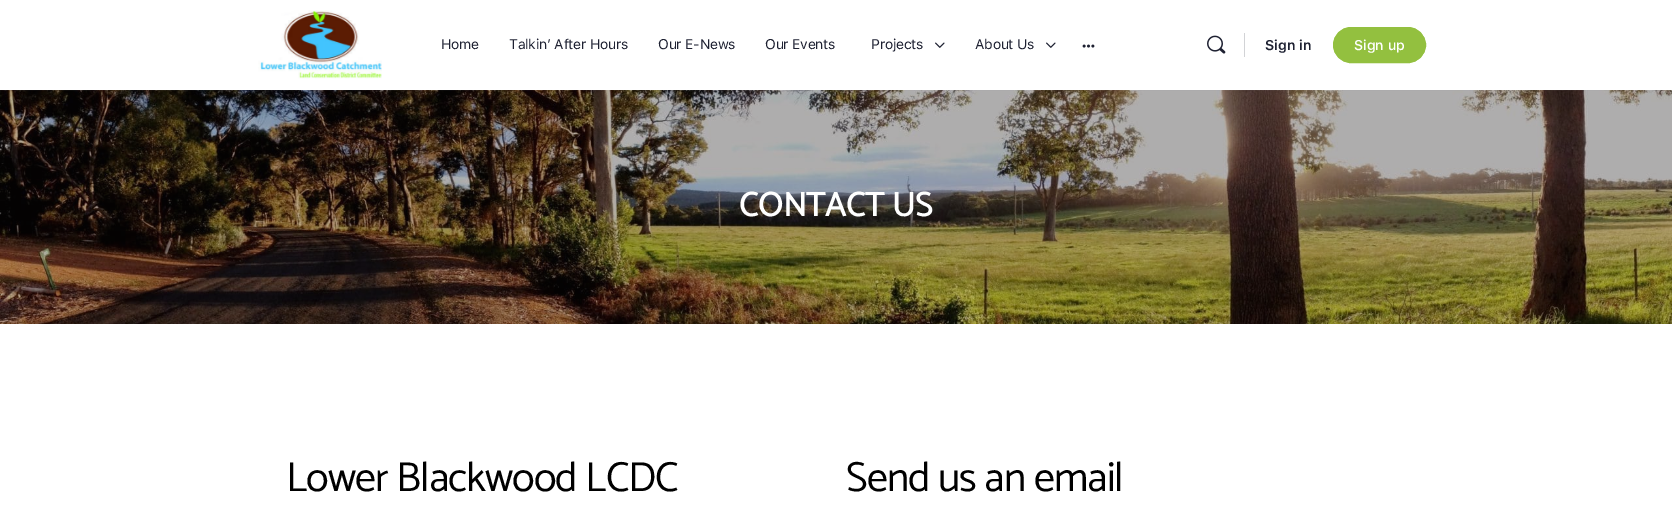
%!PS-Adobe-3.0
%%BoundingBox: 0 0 1672 518
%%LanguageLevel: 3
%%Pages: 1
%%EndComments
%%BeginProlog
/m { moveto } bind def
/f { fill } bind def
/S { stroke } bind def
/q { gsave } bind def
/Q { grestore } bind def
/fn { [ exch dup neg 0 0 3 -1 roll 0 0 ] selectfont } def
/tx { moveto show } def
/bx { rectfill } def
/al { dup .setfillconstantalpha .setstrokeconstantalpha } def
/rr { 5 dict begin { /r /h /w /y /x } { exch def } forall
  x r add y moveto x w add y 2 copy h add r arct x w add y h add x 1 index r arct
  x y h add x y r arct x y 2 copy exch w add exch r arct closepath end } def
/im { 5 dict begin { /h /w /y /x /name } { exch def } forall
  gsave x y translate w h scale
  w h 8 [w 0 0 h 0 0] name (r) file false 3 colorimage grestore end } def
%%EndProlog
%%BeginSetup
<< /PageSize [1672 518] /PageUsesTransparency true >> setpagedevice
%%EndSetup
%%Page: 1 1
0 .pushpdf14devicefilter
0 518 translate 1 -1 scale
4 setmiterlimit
1 setgray
0 0 1672 518 bx
(image4.raw) 0 90 1672 234 im
0.05 al
0.545 0.553 0.616 setrgbcolor
0 90 1672 1 bx
1 al
(image0.raw) 258 10 124 69 im
/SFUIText-Regular 14 fn
0.118 0.129 0.196 setrgbcolor
441 49 m -0.25 0 (Home) ashow
509 49 m -0.25 0 (Talkin’ After Hours) ashow
658 49 m -0.25 0 (Our E-News) ashow
765 49 m -0.25 0 (Our Events) ashow
871 49 m -0.25 0 (Projects) ashow
(image1.raw) 935 42 10 6 im
975 49 m -0.25 0 (About Us) ashow
(image1.raw) 1046 42 10 6 im
(image2.raw) 1082 44 13 4 im
(image3.raw) 1207 35 19 19 im
0.824 0.827 0.839 setrgbcolor
1244 33 1 24 bx
/SFUIText-SemiBold 14 fn
0.118 0.129 0.196 setrgbcolor
(Sign in) 1265 50 tx
0.576 0.753 0.247 setrgbcolor
1333.5 27.5 92 35 17.5 rr q f Q
S
/SFUIText-Medium 14 fn
1 setgray
(Sign up) 1354 50 tx
/Catamaran-Bold 34 fn
(CONTACT US) 739 216 tx
/Catamaran-Thin 42 fn
0 setgray
286 491 m -1 0 (Lower Blackwood LCDC) ashow
846 491 m -1 0 (Send us an email) ashow
.poppdf14devicefilter showpage
%%EOF
